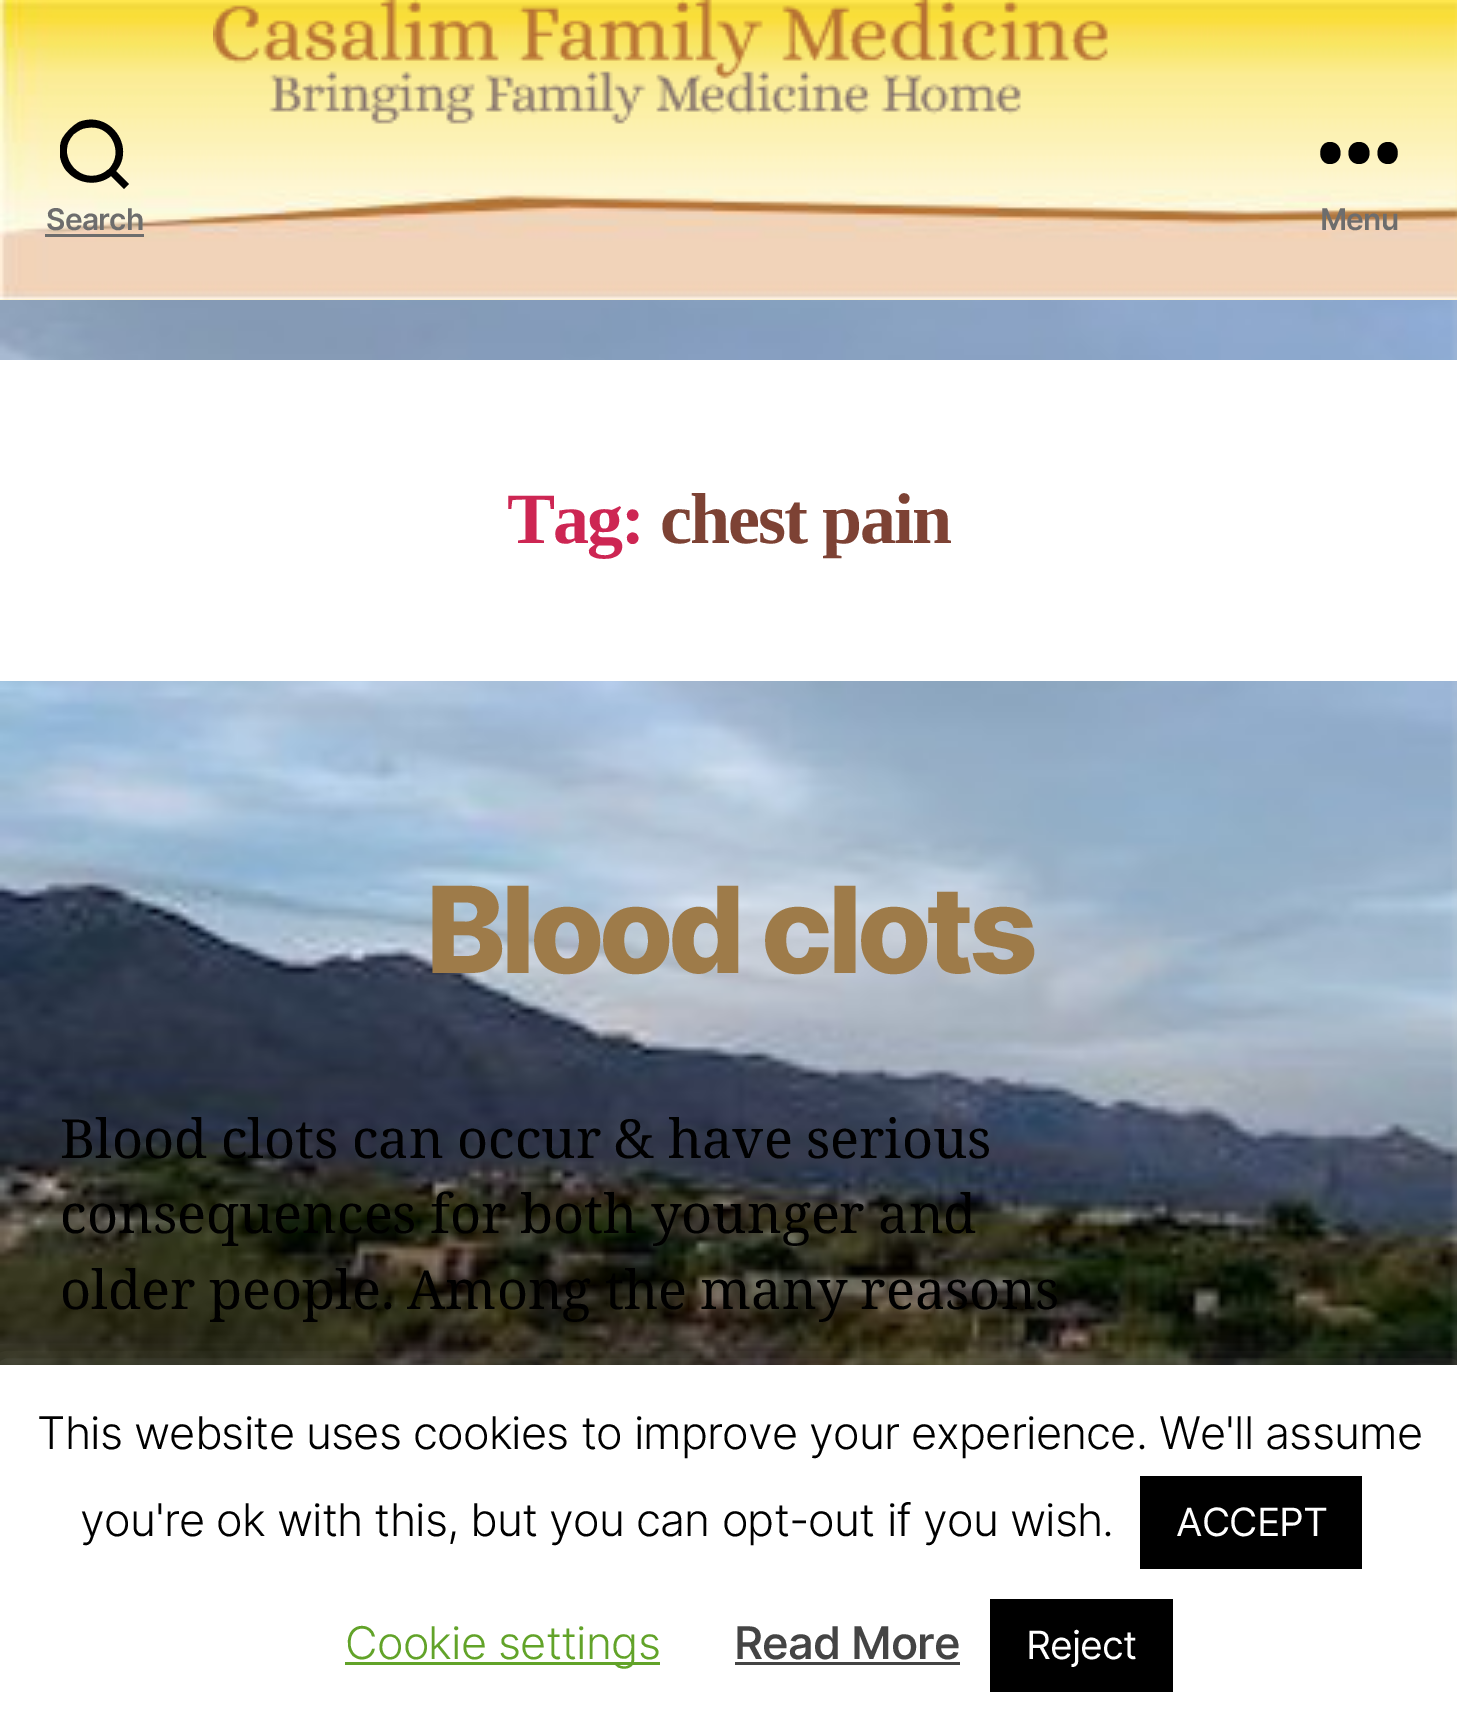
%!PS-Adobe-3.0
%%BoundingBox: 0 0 1457 1727
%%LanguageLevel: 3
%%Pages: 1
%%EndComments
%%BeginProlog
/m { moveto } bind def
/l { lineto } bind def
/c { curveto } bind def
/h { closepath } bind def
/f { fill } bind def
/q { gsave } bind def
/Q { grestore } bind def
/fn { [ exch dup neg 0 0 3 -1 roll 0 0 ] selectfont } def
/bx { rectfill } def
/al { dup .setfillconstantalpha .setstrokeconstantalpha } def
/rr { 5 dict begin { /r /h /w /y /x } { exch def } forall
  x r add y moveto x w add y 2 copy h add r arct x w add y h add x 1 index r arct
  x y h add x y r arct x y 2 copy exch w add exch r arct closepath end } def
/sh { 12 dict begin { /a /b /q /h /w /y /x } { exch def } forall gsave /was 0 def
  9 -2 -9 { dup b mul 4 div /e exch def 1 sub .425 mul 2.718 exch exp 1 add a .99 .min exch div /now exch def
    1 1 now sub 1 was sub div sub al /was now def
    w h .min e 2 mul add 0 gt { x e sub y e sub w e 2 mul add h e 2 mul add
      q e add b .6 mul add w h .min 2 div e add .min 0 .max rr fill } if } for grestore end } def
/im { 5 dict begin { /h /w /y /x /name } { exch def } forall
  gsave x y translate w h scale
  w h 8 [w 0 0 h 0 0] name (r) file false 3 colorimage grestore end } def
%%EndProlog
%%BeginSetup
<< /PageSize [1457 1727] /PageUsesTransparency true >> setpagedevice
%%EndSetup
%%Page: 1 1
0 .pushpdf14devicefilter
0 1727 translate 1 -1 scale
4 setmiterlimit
1 setgray
0 0 1457 1727 bx
(image0.raw) 0 300 1457 1065 im
0.988 0.945 0.631 setrgbcolor
0 0 1457 300 bx
(image1.raw) 0 0 1457 300 im
(image2.raw) 213 0 895 124 im
q
60 117 69 75 rectclip
0 setgray
116 171 m 129 184 l 124 189 l 111 176 l 97 187 76 184 65 169 c 59 160 58 149 62 139 c 66 132 72 126 79 122 c 110 110 136 147 116 171 c h 109 169 m 125 152 110 123 87 128 c 82 128 78 131 74 134 c 55 153 77 184 101 174 c 104 173 106 171 109 169 c h f
Q
/Inter-SemiBold 30 fn
0.427 setgray
46 230 m -0.8 0 (Search) ashow
45 234 99 3 bx
0 setgray
1330 164 m 1317 164 1317 142 1330 142 c 1344 142 1344 164 1330 164 c h 1359 164 m 1345 164 1345 142 1359 142 c 1373 142 1373 164 1359 164 c h 1388 164 m 1374 164 1374 142 1388 142 c 1401 142 1401 164 1388 164 c h eofill
0.427 setgray
1320 230 m -0.8 0 (Menu) ashow
1 setgray
0 360 1457 321 bx
/LiberationSerif-Bold 72 fn
0.804 0.149 0.325 setrgbcolor
507 543 m -2 0 (Tag:) ashow
0.49 0.259 0.204 setrgbcolor
660 543 m -2 0 (chest pain) ashow
/Inter-ExtraBold 120 fn
0.62 0.482 0.286 setrgbcolor
426 973 m -5 0 (Blood clots) ashow
/NotoSerif-Regular 54 fn
0 setgray
60 1158 m -0.75 0 32 (Blood clots can occur & have serious) widthshow
60 1233 m -0.75 0 32 (consequences for both younger and) widthshow
60 1309 m -0.75 0 32 (older people. Among the many reasons) widthshow
0.675 0.671 0.671 setrgbcolor
0 1362 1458 363 0 15 0.3 sh
1 setgray
0 1365 1457 362 bx
/Inter-Light 45 fn
0 setgray
37 1449 m -0.8 0 (This website uses cookies to improve your experience. We'll assume) ashow
80 1536 m -0.8 0 (you're ok with this, but you can opt-out if you wish.) ashow
1140 1476 222 93 bx
/Inter-Regular 39 fn
1 setgray
1176 1536 m -0.8 0 (ACCEPT) ashow
0.384 0.639 0.161 setrgbcolor
345 1662 315 3 bx
/Inter-Light 45 fn
345 1659 m -0.8 0 (Cookie settings) ashow
/Inter-Medium 45 fn
0.267 setgray
734 1659 m -0.8 0 (Read More) ashow
735 1662 225 3 bx
0 setgray
990 1599 183 93 bx
/Inter-Regular 39 fn
1 setgray
1026 1659 m -0.8 0 (Reject) ashow
.poppdf14devicefilter showpage
%%EOF
